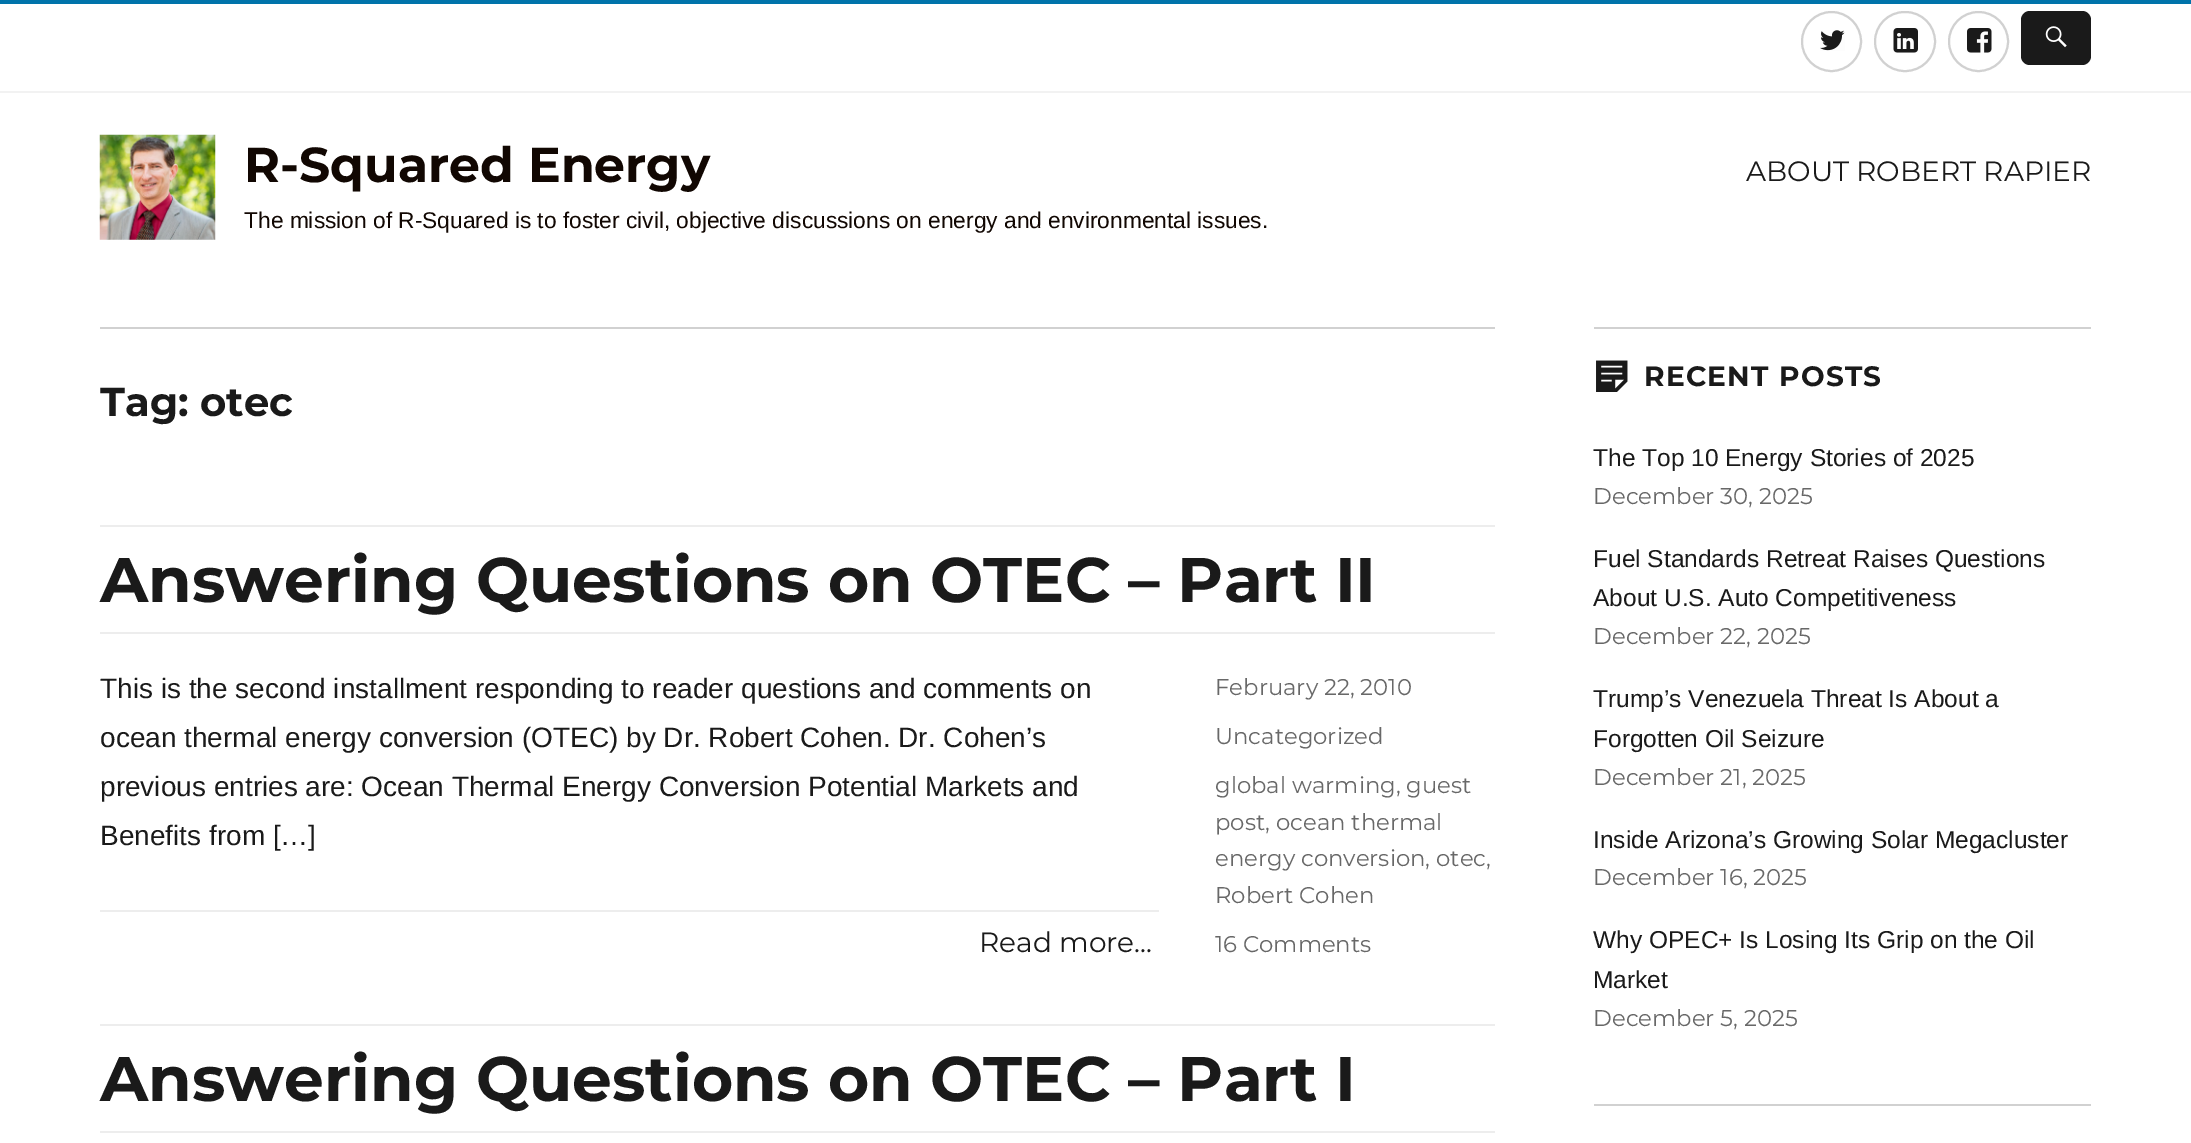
%!PS-Adobe-3.0
%%BoundingBox: 0 0 2191 1143
%%LanguageLevel: 3
%%Pages: 1
%%EndComments
%%BeginProlog
/m { moveto } bind def
/f { fill } bind def
/S { stroke } bind def
/w { setlinewidth } bind def
/fn { [ exch dup neg 0 0 3 -1 roll 0 0 ] selectfont } def
/tx { moveto show } def
/bx { rectfill } def
/ci { newpath 0 360 arc closepath } def
/rr { 5 dict begin { /r /h /w /y /x } { exch def } forall
  x r add y moveto x w add y 2 copy h add r arct x w add y h add x 1 index r arct
  x y h add x y r arct x y 2 copy exch w add exch r arct closepath end } def
/im { 5 dict begin { /h /w /y /x /name } { exch def } forall
  gsave x y translate w h scale
  w h 8 [w 0 0 h 0 0] name (r) file false 3 colorimage grestore end } def
%%EndProlog
%%BeginSetup
<< /PageSize [2191 1143] >> setpagedevice
%%EndSetup
%%Page: 1 1
0 1143 translate 1 -1 scale
4 setmiterlimit
1 setgray
0 0 2191 1143 bx
0 0.451 0.667 setrgbcolor
0 0 2191 4 bx
0.949 setgray
0 91 2191 2 bx
0.82 setgray
2 w
1831.5 41.5 29.5 ci S
(image0.raw) 1820 30 25 21 im
1875 12 60 59 29.5 rr S
(image1.raw) 1893 28 25 25 im
1978.5 41.5 29.5 ci S
(image2.raw) 1967 28 25 25 im
0.102 setgray
2021 11 70 54 9 rr f
(image3.raw) 2045 26 22 22 im
(image4.raw) 99 134 117 106 im
/Montserrat-Bold 49 fn
0.067 0.027 0.008 setrgbcolor
(R-Squared Energy) 244 182 tx
/Arimo-Regular 22.75 fn
(The mission of R-Squared is to foster civil, objective discussions on energy and environmental issues.) 244 228 tx
/Montserrat-Regular 28 fn
0.102 setgray
(ABOUT ROBERT RAPIER) 1746 181 tx
0.82 setgray
100 327 1395 2 bx
/Montserrat-Bold 40.25 fn
0.102 setgray
(Tag: otec) 100 416 tx
0.929 setgray
100 525 1395 2 bx
100 632 1395 2 bx
/Montserrat-Bold 63 fn
0.102 setgray
(Answering Questions on OTEC – Part II) 100 602 tx
/Arimo-Regular 28 fn
(This is the second installment responding to reader questions and comments on) 100 698 tx
(ocean thermal energy conversion \(OTEC\) by Dr. Robert Cohen. Dr. Cohen’s) 100 747 tx
(previous entries are: Ocean Thermal Energy Conversion Potential Markets and) 100 796 tx
(Benefits from […]) 100 845 tx
0.929 setgray
100 910 1059 2 bx
/Montserrat-Regular 28 fn
0.102 setgray
(Read more...) 979 952 tx
/Montserrat-Regular 22.75 fn
0.408 setgray
(February 22, 2010) 1215 695 tx
(Uncategorized) 1215 744 tx
(global warming, guest) 1215 793 tx
(post, ocean thermal) 1215 830 tx
(energy conversion, otec,) 1215 866 tx
(Robert Cohen) 1215 903 tx
(16 Comments) 1215 952 tx
0.929 setgray
100 1024 1395 2 bx
100 1131 1395 2 bx
/Montserrat-Bold 63 fn
0.102 setgray
(Answering Questions on OTEC – Part I) 100 1101 tx
0.82 setgray
1594 327 497 2 bx
(image5.raw) 1596 360 32 32 im
/Montserrat-Bold 28 fn
0.102 setgray
1644 386 m 1.25 0 (RECENT POSTS) ashow
/Arimo-Regular 24.5 fn
(The Top 10 Energy Stories of 2025) 1593 466 tx
/Montserrat-Regular 22.75 fn
0.408 setgray
(December 30, 2025) 1593 504 tx
/Arimo-Regular 24.5 fn
0.102 setgray
(Fuel Standards Retreat Raises Questions) 1593 567 tx
(About U.S. Auto Competitiveness) 1593 606 tx
/Montserrat-Regular 22.75 fn
0.408 setgray
(December 22, 2025) 1593 644 tx
/Arimo-Regular 24.5 fn
0.102 setgray
(Trump’s Venezuela Threat Is About a) 1593 707 tx
(Forgotten Oil Seizure) 1593 747 tx
/Montserrat-Regular 22.75 fn
0.408 setgray
(December 21, 2025) 1593 785 tx
/Arimo-Regular 24.5 fn
0.102 setgray
(Inside Arizona’s Growing Solar Megacluster) 1593 848 tx
/Montserrat-Regular 22.75 fn
0.408 setgray
(December 16, 2025) 1593 885 tx
/Arimo-Regular 24.5 fn
0.102 setgray
(Why OPEC+ Is Losing Its Grip on the Oil) 1593 948 tx
(Market) 1593 988 tx
/Montserrat-Regular 22.75 fn
0.408 setgray
(December 5, 2025) 1593 1026 tx
0.82 setgray
1594 1104 497 2 bx
showpage
%%EOF
